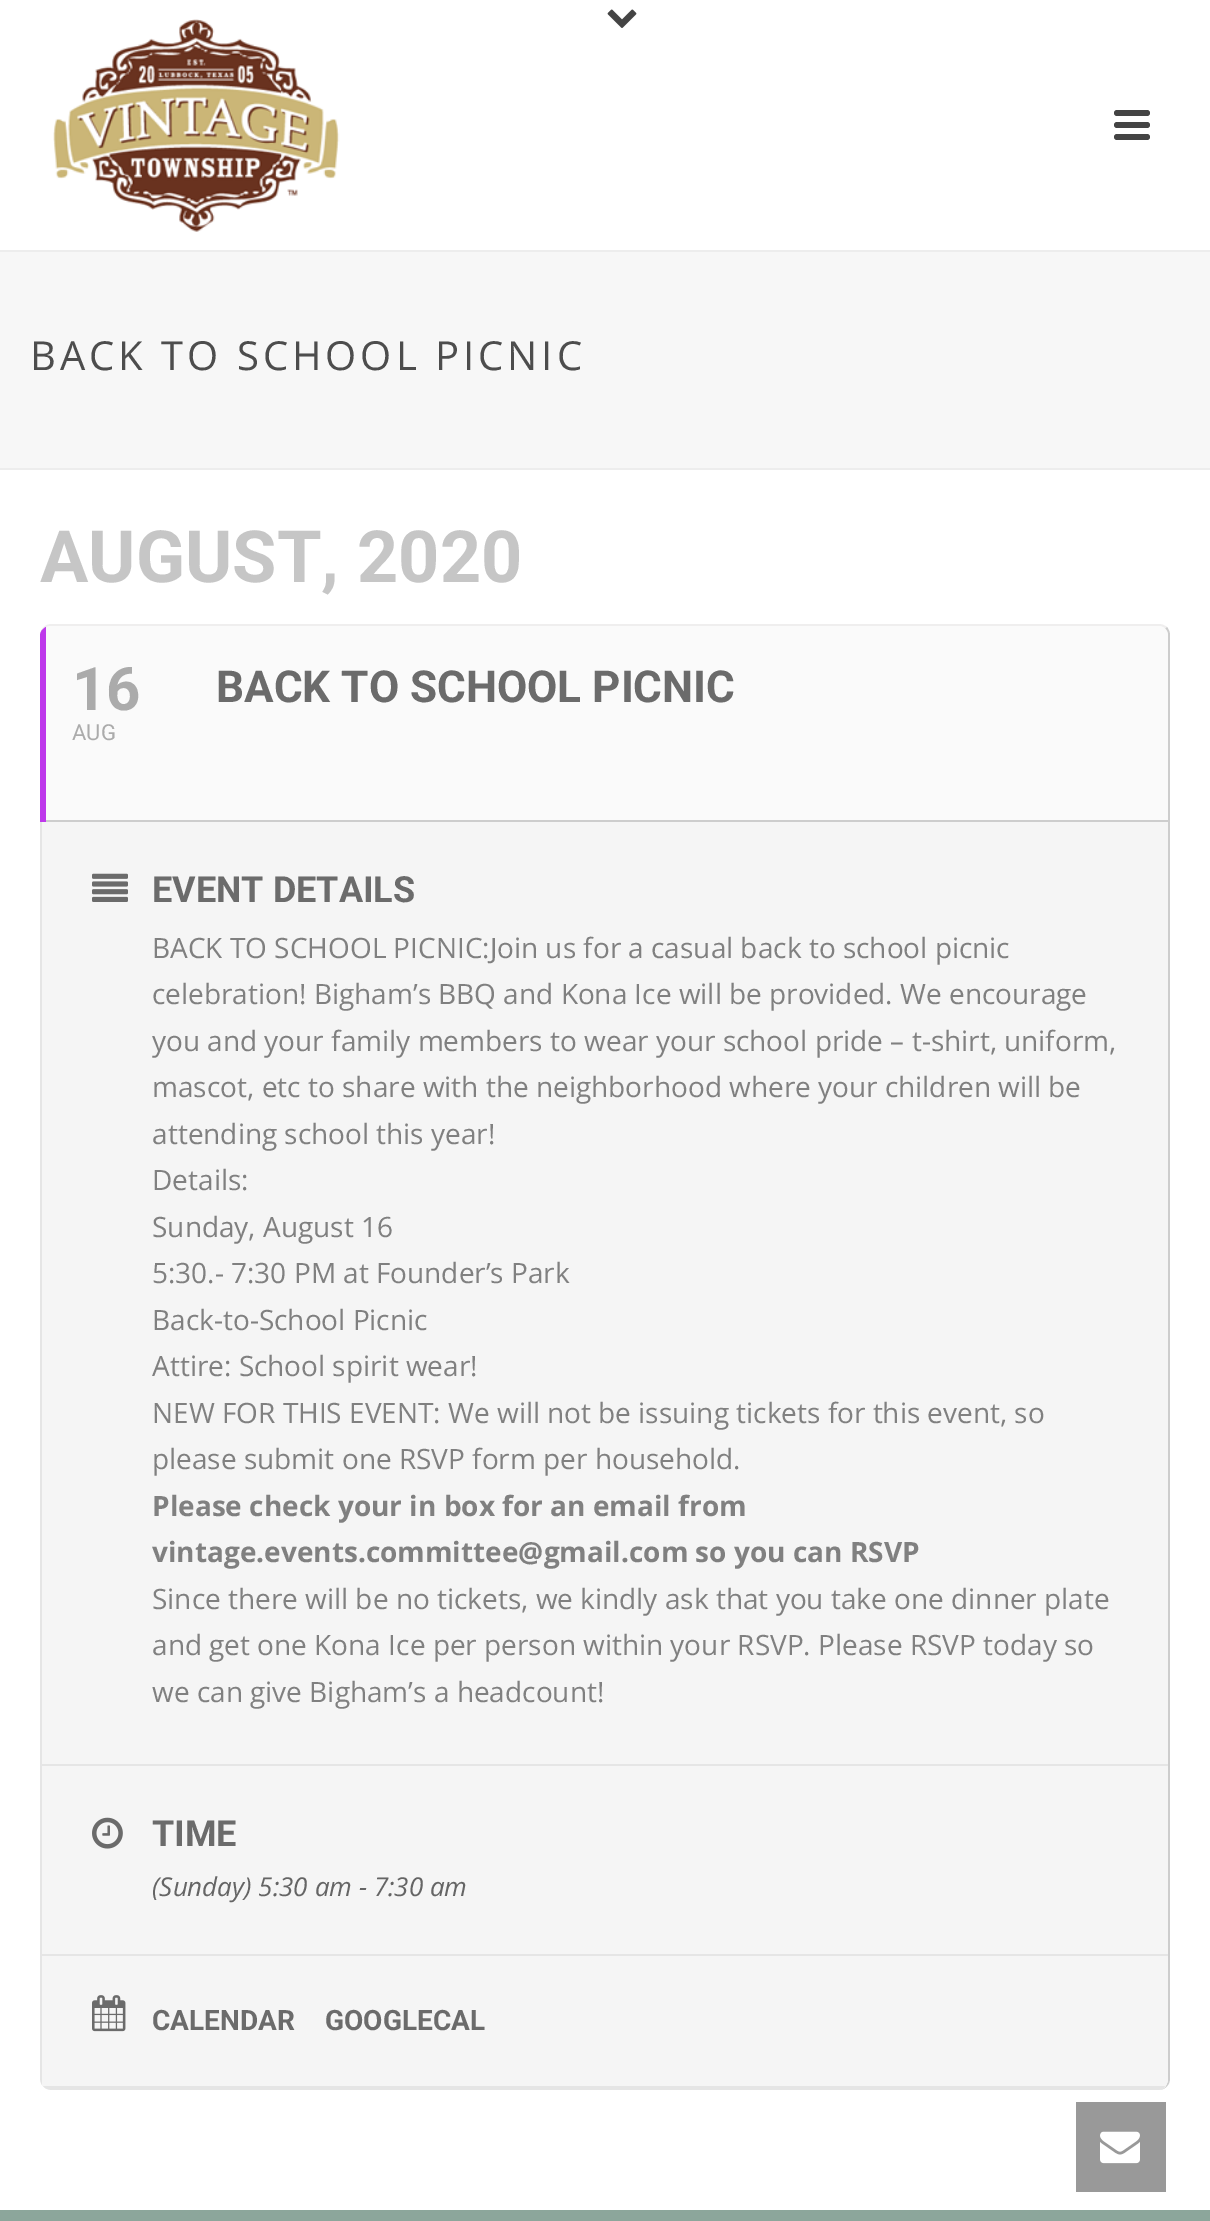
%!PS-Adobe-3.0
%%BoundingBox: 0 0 1210 2221
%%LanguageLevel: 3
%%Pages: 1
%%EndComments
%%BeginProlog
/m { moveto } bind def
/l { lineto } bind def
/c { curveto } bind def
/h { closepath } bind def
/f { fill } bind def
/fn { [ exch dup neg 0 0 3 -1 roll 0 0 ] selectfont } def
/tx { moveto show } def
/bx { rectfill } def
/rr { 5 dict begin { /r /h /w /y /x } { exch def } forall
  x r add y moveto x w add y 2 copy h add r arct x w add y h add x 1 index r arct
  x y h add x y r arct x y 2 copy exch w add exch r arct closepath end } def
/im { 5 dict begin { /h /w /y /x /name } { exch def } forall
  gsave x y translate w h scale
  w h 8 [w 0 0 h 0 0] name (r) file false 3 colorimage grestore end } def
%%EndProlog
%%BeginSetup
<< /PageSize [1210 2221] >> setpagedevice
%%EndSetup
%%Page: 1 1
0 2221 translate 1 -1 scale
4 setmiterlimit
1 setgray
0 0 1210 2221 bx
0.969 setgray
0 252 1210 216 bx
0.929 setgray
0 468 1210 2 bx
0 250 1210 2 bx
(image0.raw) 607 9 30 19 im
(image1.raw) 53 19 287 213 im
0.267 setgray
1114 110 36 6 3 rr f
1114 122 36 6 3 rr f
1114 134 36 6 3 rr f
/OpenSans-Regular 40 fn
0.302 setgray
30 370 m 4 0 (BACK TO SCHOOL PICNIC) ashow
/Roboto-Bold 72 fn
0.776 setgray
(AUGUST, 2020) 40 582 tx
0.937 0.933 0.933 setrgbcolor
52 624 m 1158 624 l 1162 624 1164 625 1167 627 c 1165 629 l 1164 627 1161 626 1158 626 c 52 626 l 45 626 40 630 40 636 c 40 629 45 624 52 624 c h f
0.804 setgray
1167 627 m 1165 629 l 1167 630 1168 633 1168 636 c 1168 2078 l 1168 2085 1164 2090 1158 2090 c 1165 2090 1170 2085 1170 2078 c 1170 636 l 1170 632 1169 630 1167 627 c h f
0.98 setgray
52 626 m 45 626 40 630 40 636 c 40 822 l 1168 822 l 1168 636 l 1168 630 1164 626 1158 626 c h f
0.745 0.22 0.922 setrgbcolor
46 627 m 42 629 40 632 40 636 c 40 822 l 46 822 l h f
/Roboto-Bold 60 fn
0.671 setgray
(16) 72 710 tx
/Roboto-Regular 22 fn
(AUG) 72 740 tx
/Roboto-Bold 44 fn
0.42 setgray
(BACK TO SCHOOL PICNIC) 216 702 tx
0.804 setgray
46 820 1122 2 bx
0.961 setgray
40 822 m 40 2078 l 40 2085 45 2090 52 2090 c 1158 2090 l 1164 2090 1168 2085 1168 2078 c 1168 822 l h f
0.898 setgray
52 2090 m 1158 2090 l 1160 2090 1162 2089 1164 2088 c 45 2088 l 47 2089 50 2090 52 2090 c h f
40 822 m 40 2078 l 40 2080 41 2083 42 2085 c 42 822 l h f
42 1764 1126 2 bx
(image2.raw) 92 873 36 29 im
/Roboto-Bold 36 fn
0.42 setgray
(EVENT DETAILS) 152 902 tx
/OpenSans-Regular 28 fn
0.502 setgray
(BACK TO SCHOOL PICNIC:Join us for a casual back to school picnic) 152 958 tx
(celebration! Bigham’s BBQ and Kona Ice will be provided. We encourage) 152 1004 tx
(you and your family members to wear your school pride – t-shirt, uniform,) 152 1051 tx
(mascot, etc to share with the neighborhood where your children will be) 152 1097 tx
(attending school this year!) 152 1144 tx
(Details:) 152 1190 tx
(Sunday, August 16) 152 1237 tx
(5:30.- 7:30 PM at Founder’s Park) 152 1283 tx
(Back-to-School Picnic) 152 1330 tx
(Attire: School spirit wear!) 152 1376 tx
(NEW FOR THIS EVENT: We will not be issuing tickets for this event, so) 152 1423 tx
(please submit one RSVP form per household.) 152 1469 tx
/OpenSans-Bold 28 fn
(Please check your in box for an email from) 152 1516 tx
(vintage.events.committee@gmail.com so you can RSVP) 152 1562 tx
/OpenSans-Regular 28 fn
(Since there will be no tickets, we kindly ask that you take one dinner plate) 152 1609 tx
(and get one Kona Ice per person within your RSVP. Please RSVP today so) 152 1655 tx
(we can give Bigham’s a headcount!) 152 1702 tx
0.898 setgray
42 1954 1126 2 bx
(image3.raw) 92 1817 31 32 im
/Roboto-Bold 36 fn
0.42 setgray
(TIME) 152 1846 tx
/OpenSans-Italic 26 fn
0.396 setgray
(\(Sunday\) 5:30 am - 7:30 am) 152 1896 tx
0.961 setgray
42 1956 m 1168 1956 l 1168 2078 l 1168 2082 1166 2086 1164 2088 c 45 2088 l 42 2085 l h f
0.898 setgray
45 2088 m 43 2086 l 1165 2086 l 1164 2088 l h f
(image4.raw) 92 1995 34 37 im
/Roboto-Bold 28 fn
0.42 setgray
(CALENDAR) 152 2030 tx
(GOOGLECAL) 325 2030 tx
0.549 0.651 0.608 setrgbcolor
0 2210 1210 11 bx
0.6 setgray
1076 2102 90 90 bx
(image5.raw) 1100 2131 40 33 im
showpage
%%EOF
